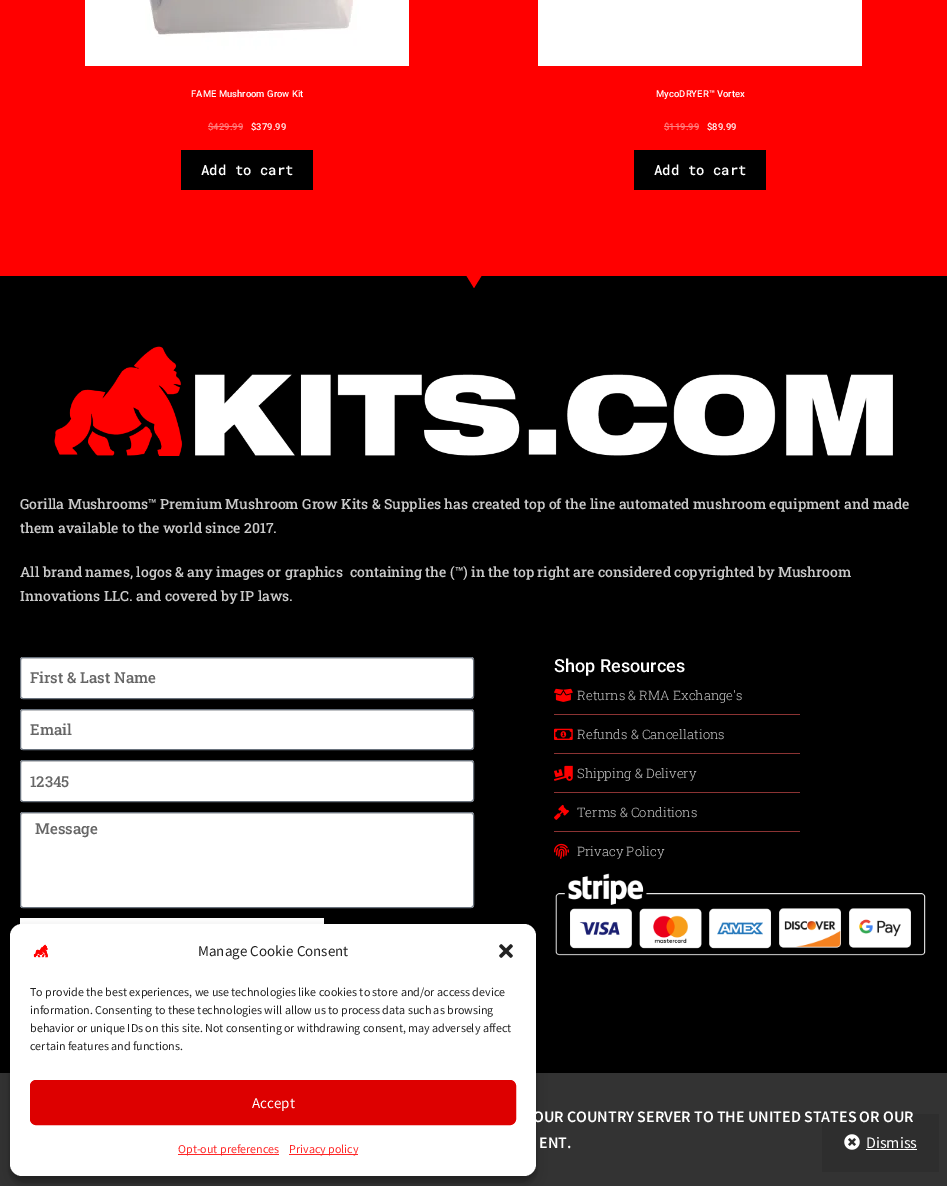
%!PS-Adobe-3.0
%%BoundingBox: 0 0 947 1186
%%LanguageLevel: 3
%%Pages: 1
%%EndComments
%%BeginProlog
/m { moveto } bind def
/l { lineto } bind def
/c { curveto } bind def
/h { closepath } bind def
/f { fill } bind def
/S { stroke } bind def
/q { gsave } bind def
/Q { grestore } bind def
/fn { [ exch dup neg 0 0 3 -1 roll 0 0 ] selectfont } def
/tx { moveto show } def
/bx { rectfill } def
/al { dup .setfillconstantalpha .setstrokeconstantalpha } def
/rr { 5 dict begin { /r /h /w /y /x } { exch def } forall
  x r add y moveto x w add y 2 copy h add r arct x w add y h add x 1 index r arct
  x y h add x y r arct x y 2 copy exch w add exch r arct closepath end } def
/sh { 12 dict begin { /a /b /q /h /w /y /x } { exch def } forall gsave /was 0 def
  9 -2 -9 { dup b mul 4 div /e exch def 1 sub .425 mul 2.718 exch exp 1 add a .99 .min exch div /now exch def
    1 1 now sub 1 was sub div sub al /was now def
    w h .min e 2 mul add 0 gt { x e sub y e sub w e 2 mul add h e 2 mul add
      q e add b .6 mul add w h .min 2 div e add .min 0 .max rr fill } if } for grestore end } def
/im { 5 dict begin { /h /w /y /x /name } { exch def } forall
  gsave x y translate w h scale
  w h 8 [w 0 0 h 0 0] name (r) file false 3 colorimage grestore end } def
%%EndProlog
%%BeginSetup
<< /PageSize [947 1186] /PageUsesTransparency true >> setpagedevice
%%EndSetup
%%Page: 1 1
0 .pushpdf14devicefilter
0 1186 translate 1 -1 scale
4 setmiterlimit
1 0 0 setrgbcolor
0 0 947 1186 bx
(image0.raw) 85 0 324 66 im
/Roboto-Medium 9.5 fn
1 setgray
(FAME Mushroom Grow Kit) 191 97 tx
1 0.502 0.502 setrgbcolor
($429.99) 208 130 tx
208 126 35 1 bx
1 setgray
($379.99) 251 130 tx
0 setgray
181 150 132 40 bx
/RobotoMono-Medium 14 fn
1 setgray
(Add to cart) 201 175 tx
538 0 324 66 bx
/Roboto-Medium 9.5 fn
(MycoDRYER™ Vortex) 656 97 tx
1 0.502 0.502 setrgbcolor
($119.99) 664 130 tx
664 126 35 1 bx
1 setgray
($89.99) 707 130 tx
0 setgray
634 150 132 40 bx
/RobotoMono-Medium 14 fn
1 setgray
(Add to cart) 654 175 tx
0 setgray
0 276 947 797 bx
1 0 0 setrgbcolor
474 288 m 466 275 l 482 275 l h f
(image1.raw) 54 346 839 110 im
/RobotoSlab-Medium 14 fn
0.788 setgray
(Gorilla Mushrooms™ Premium Mushroom Grow Kits & Supplies has created top of the line automated mushroom equipment and made) 20 509 tx
(them available to the world since 2017.) 20 533 tx
(All brand names, logos & any images or graphics  containing the \(™\) in the top right are considered copyrighted by Mushroom) 20 577 tx
(Innovations LLC. and covered by IP laws.) 20 601 tx
1 setgray
20 657 454 42 3 rr f
0.875 setgray
23 659 m 471 659 l 472 659 473 660 473 661 c 473 660 473 658 471 658 c 23 658 l 21 658 21 660 21 661 c 21 660 22 659 23 659 c h f
0.412 0.447 0.49 setrgbcolor
20.5 657.5 453 41 2.5 rr S
/RobotoSlab-Medium 15 fn
0.4 setgray
(First & Last Name) 30 683 tx
1 setgray
20 709 454 41 3 rr f
0.875 setgray
23 711 m 471 711 l 472 711 473 712 473 713 c 473 712 473 710 471 710 c 23 710 l 21 710 21 712 21 713 c 21 712 22 711 23 711 c h f
0.412 0.447 0.49 setrgbcolor
20.5 709.5 453 40 2.5 rr S
0.4 setgray
(Email) 30 735 tx
1 setgray
20 760 454 42 3 rr f
0.875 setgray
23 762 m 471 762 l 472 762 473 763 473 764 c 473 763 473 761 471 761 c 23 761 l 21 761 21 763 21 764 c 21 763 22 762 23 762 c h f
0.412 0.447 0.49 setrgbcolor
20.5 760.5 453 41 2.5 rr S
0.4 setgray
(12345) 30 787 tx
1 setgray
20 812 454 96 3 rr f
0.875 setgray
23 814 m 471 814 l 472 814 473 815 473 816 c 473 815 473 813 471 813 c 23 813 l 21 813 21 815 21 816 c 21 815 22 814 23 814 c h f
0.412 0.447 0.49 setrgbcolor
20.5 812.5 453 95 2.5 rr S
0.4 setgray
(Message) 35 834 tx
1 setgray
20 918 304 7 bx
/Roboto-Medium 18 fn
(Shop Resources) 554 672 tx
(image2.raw) 554 688 19 14 im
/RobotoSlab-Light 13 fn
0.788 setgray
(Returns & RMA Exchange's) 577 700 tx
0.545 0.2 0.2 setrgbcolor
554 714 246 1 bx
(image3.raw) 554 728 19 12 im
0.788 setgray
(Refunds & Cancellations) 577 739 tx
0.545 0.2 0.2 setrgbcolor
554 753 246 1 bx
(image4.raw) 554 765 19 16 im
0.788 setgray
(Shipping & Delivery) 577 778 tx
0.545 0.2 0.2 setrgbcolor
554 792 246 1 bx
(image5.raw) 554 804 15 16 im
0.788 setgray
(Terms & Conditions) 577 817 tx
0.545 0.2 0.2 setrgbcolor
554 831 246 1 bx
(image6.raw) 554 843 15 16 im
0.788 setgray
(Privacy Policy) 577 856 tx
(image7.raw) 555 873 371 83 im
0.2 setgray
0 1073 947 113 bx
0 setgray
10 930 526 252 12 3 0.23 sh
10 934 526 252 12 10 0.19 sh
1 setgray
10 924 526 252 12 rr f
(image8.raw) 33 944 15 14 im
/SourceSansPro-Regular 15 fn
0.133 setgray
(Manage Cookie Consent) 198 956 tx
(image9.raw) 499 944 14 14 im
/SourceSansPro-Regular 12 fn
(To provide the best experiences, we use technologies like cookies to store and/or access device) 30 996 tx
(information. Consenting to these technologies will allow us to process data such as browsing) 30 1014 tx
(behavior or unique IDs on this site. Not consenting or withdrawing consent, may adversely affect) 30 1032 tx
(certain features and functions.) 30 1050 tx
0.867 0 0 setrgbcolor
30.5 1080.5 485 44 5.5 rr q f Q
S
/SourceSansPro-Regular 15 fn
1 setgray
(Accept) 252 1108 tx
1 0.157 0.157 setrgbcolor
178 1154 101 1 bx
/SourceSansPro-Regular 12 fn
(Opt-out preferences) 178 1153 tx
289 1154 69 1 bx
(Privacy policy) 289 1153 tx
0.18 setgray
822 1114 117 58 bx
/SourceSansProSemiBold-SemiBold 16 fn
1 setgray
(OUR COUNTRY SERVER TO THE UNITED STATES OR OUR) 533 1122 tx
(ENT.) 539 1148 tx
(image10.raw) 844 1134 16 16 im
/SourceSansPro-Regular 16 fn
(Dismiss) 866 1148 tx
866 1149 51 1 bx
.poppdf14devicefilter showpage
%%EOF
